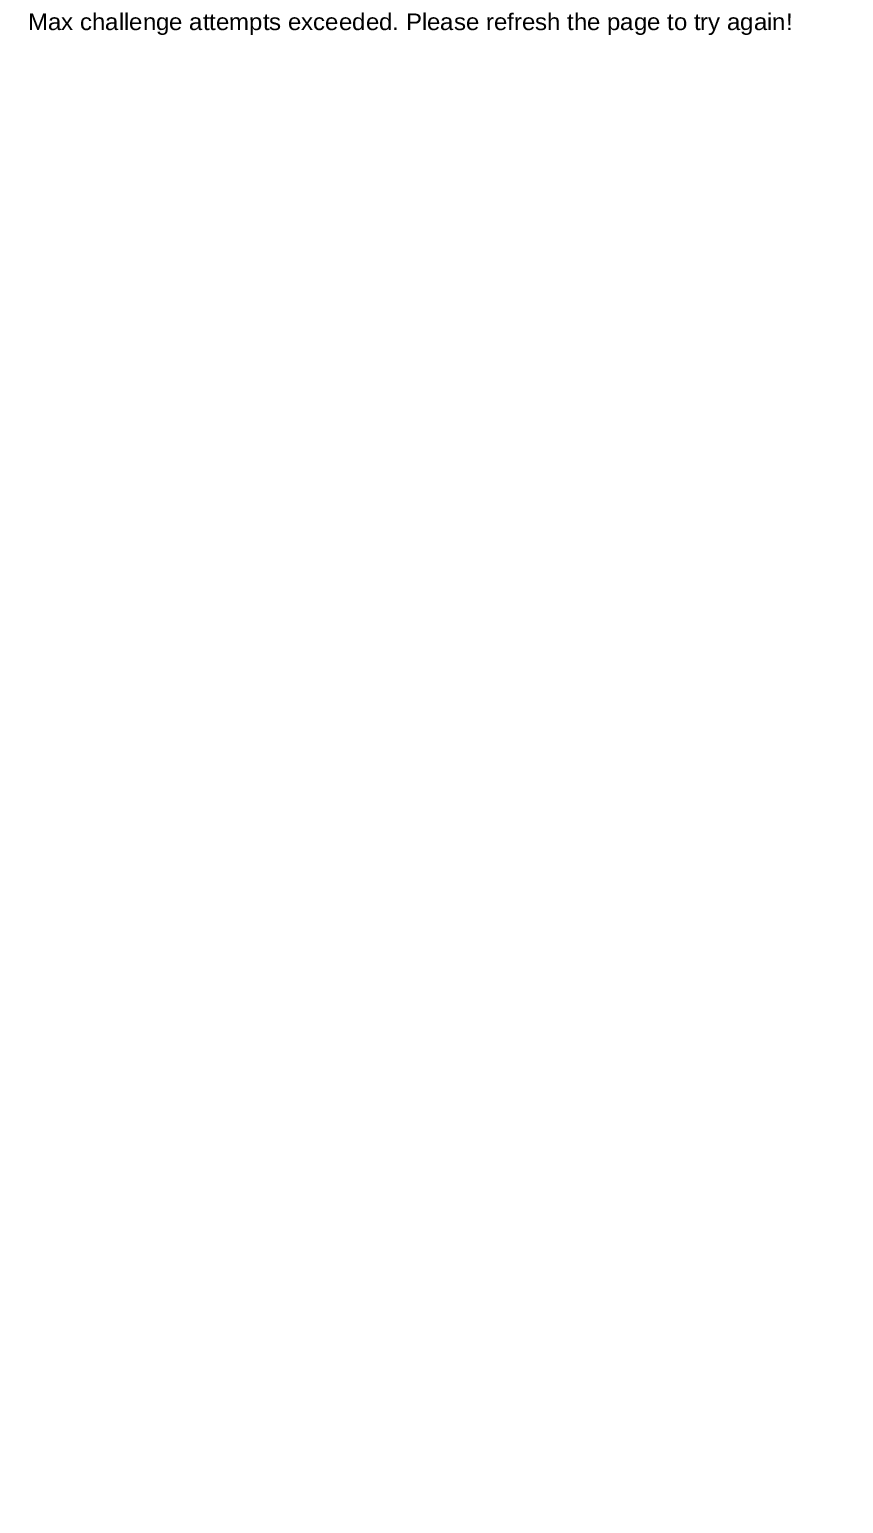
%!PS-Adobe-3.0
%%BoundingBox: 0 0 873 1533
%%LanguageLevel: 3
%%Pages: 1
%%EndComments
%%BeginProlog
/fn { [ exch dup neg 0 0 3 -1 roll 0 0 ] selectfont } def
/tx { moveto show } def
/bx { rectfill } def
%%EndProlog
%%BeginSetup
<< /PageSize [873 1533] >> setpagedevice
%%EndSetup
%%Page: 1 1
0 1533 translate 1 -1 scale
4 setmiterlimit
1 setgray
0 0 873 1533 bx
/LiberationSans-Regular 24 fn
0 setgray
(Max challenge attempts exceeded. Please refresh the page to try again!) 28 30 tx
showpage
%%EOF
